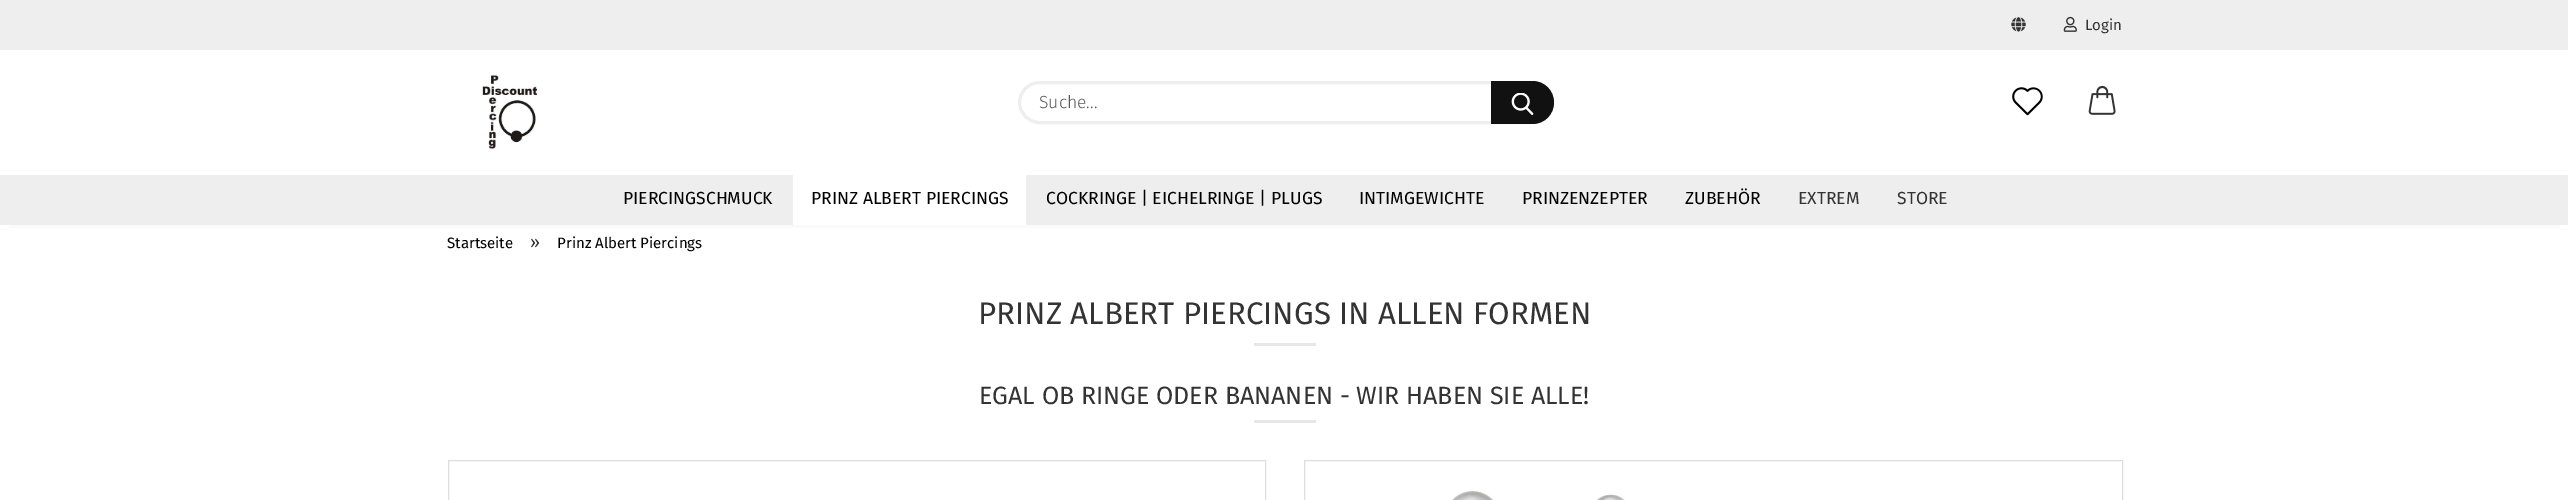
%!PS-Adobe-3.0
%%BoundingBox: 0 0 2568 500
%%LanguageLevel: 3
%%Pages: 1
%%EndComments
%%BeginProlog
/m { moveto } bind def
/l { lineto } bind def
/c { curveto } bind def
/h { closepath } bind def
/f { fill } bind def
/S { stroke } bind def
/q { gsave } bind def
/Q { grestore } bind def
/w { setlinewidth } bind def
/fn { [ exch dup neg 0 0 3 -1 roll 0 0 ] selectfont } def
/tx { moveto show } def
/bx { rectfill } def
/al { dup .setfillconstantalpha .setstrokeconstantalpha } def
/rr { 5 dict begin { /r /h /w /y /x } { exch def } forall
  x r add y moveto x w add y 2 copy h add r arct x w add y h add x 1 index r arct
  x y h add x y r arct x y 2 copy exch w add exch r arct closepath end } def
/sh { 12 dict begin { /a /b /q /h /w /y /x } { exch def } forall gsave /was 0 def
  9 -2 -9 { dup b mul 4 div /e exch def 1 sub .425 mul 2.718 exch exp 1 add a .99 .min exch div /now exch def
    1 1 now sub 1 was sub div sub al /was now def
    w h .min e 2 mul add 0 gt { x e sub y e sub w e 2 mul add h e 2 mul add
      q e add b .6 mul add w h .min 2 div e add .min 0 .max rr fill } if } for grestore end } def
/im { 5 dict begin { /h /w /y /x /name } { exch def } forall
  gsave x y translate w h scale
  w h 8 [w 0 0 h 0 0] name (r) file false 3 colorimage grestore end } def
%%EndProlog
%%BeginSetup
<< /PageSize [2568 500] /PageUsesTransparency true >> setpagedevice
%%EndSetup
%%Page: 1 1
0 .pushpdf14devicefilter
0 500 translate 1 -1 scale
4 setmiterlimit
1 setgray
0 0 2568 500 bx
q
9 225 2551 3 rectclip
0 setgray
0 0 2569 205 0 15.5 0.3 sh
Q
0.933 setgray
0 0 2568 50 bx
(image0.raw) 2011 17 15 15 im
(image1.raw) 2063 16 14 16 im
/FiraSans-Regular 15 fn
0.2 setgray
(Login) 2085 30 tx
(image2.raw) 482 75 56 74 im
0.933 setgray
3 w
1019.5 82.5 530 40 20 rr S
/FiraSans-Light 17.5 fn
0.349 setgray
(Suche...) 1039 108 tx
0.067 setgray
1491 81 m 1532.5 81 l 1544.5 81 1554 90.5 1554 102.5 c 1554 114.5 1544.5 124 1532.5 124 c 1491 124 l h f
(image3.raw) 1511 93 23 22 im
(image4.raw) 2012 87 31 29 im
(image5.raw) 2088 85 28 30 im
0.933 setgray
0 175 2568 50 bx
/FiraSans-Regular 17.5 fn
0 setgray
(PIERCINGSCHMUCK) 623 204 tx
1 setgray
793 175 233 50 bx
0 setgray
(PRINZ ALBERT PIERCINGS) 811 204 tx
(COCKRINGE | EICHELRINGE | PLUGS) 1046 204 tx
(INTIMGEWICHTE) 1359 204 tx
(PRINZENZEPTER) 1522 204 tx
(ZUBEHÖR) 1685 204 tx
0.2 setgray
(EXTREM) 1798 204 tx
(STORE) 1897 204 tx
/FiraSans-Regular 15 fn
0 setgray
(Startseite) 447 248 tx
/FiraSans-Regular 17.5 fn
0.2 setgray
(») 530 248 tx
/FiraSans-Regular 15 fn
0 setgray
(Prinz Albert Piercings) 557 248 tx
/FiraSans-Regular 31.25 fn
0.2 setgray
(PRINZ ALBERT PIERCINGS IN ALLEN FORMEN) 978 324 tx
0.906 setgray
1254 343 62 3 bx
/FiraSans-Regular 25 fn
0.2 setgray
(EGAL OB RINGE ODER BANANEN - WIR HABEN SIE ALLE!) 979 404 tx
0.906 setgray
1254 420 62 3 bx
0.867 setgray
1 w
448.5 460.5 817 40 rectstroke
1304.5 460.5 818 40 rectstroke
(image6.raw) 1452 491 173 9 im
.poppdf14devicefilter showpage
%%EOF
